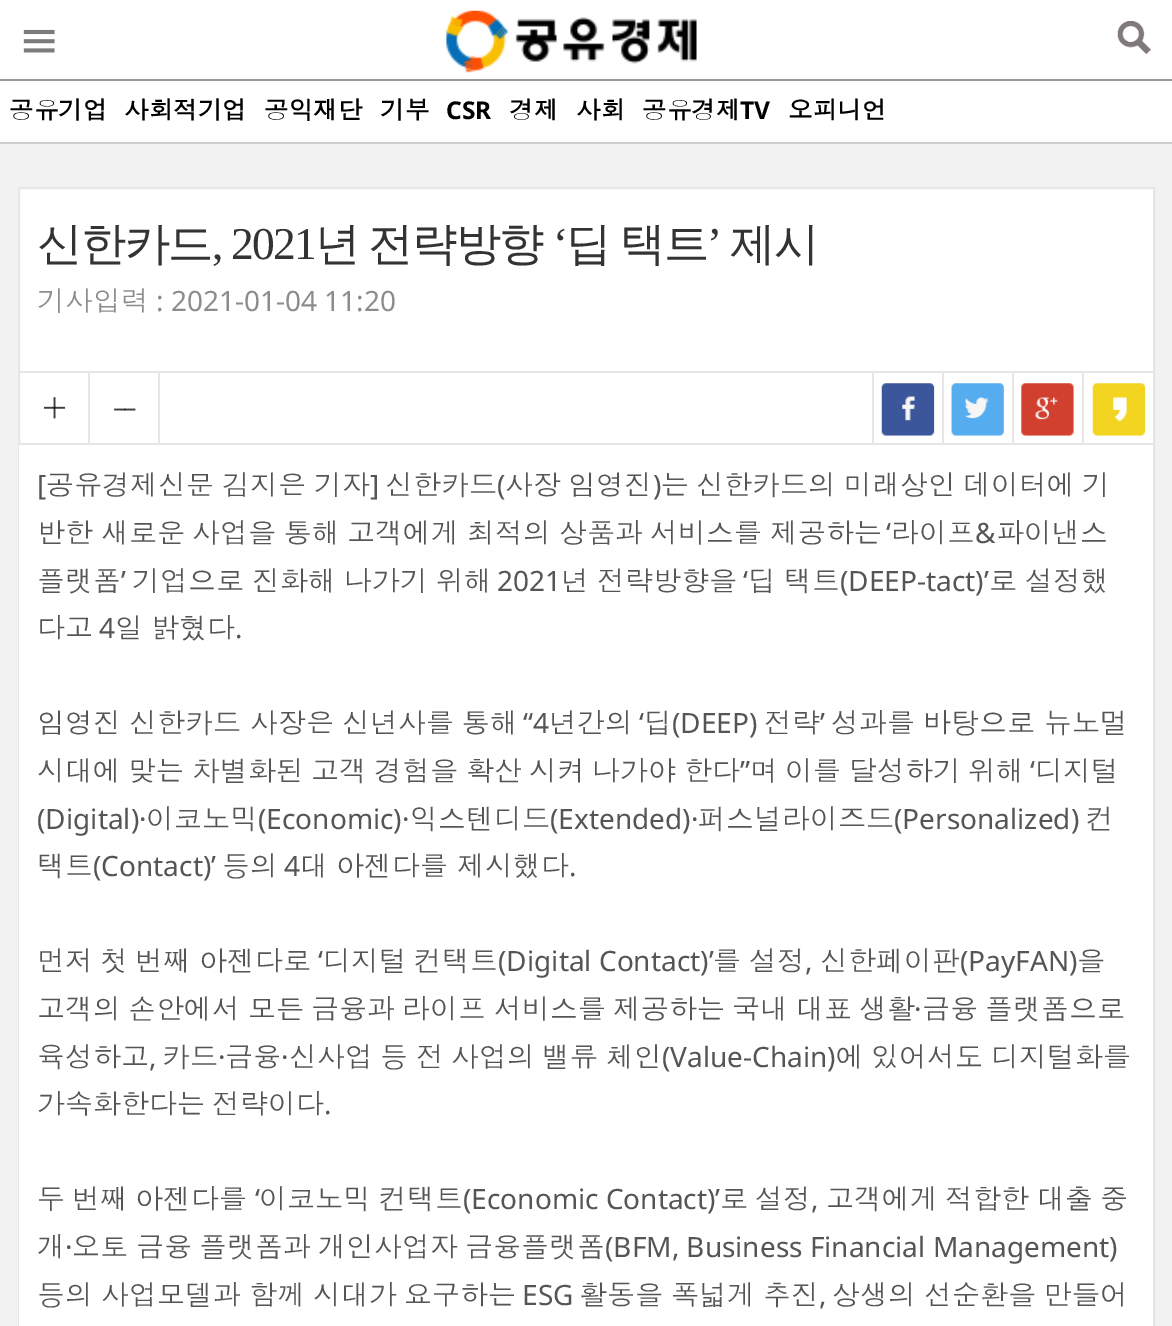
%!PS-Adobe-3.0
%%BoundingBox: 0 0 1172 1326
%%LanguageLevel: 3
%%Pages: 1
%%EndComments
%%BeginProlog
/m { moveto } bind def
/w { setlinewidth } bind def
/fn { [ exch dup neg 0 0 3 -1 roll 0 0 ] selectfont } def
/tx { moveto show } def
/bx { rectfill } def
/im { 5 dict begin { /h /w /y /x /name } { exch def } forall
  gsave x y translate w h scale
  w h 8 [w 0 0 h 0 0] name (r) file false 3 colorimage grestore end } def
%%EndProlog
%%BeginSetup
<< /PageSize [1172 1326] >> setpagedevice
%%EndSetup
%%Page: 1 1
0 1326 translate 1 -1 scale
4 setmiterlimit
0.949 setgray
0 0 1172 1326 bx
1 setgray
0 0 1172 79 bx
0.6 setgray
0 79 1172 2 bx
(image0.raw) 23 29 32 24 im
(image1.raw) 446 10 251 63 im
(image2.raw) 1117 21 34 33 im
1 setgray
0 81 1172 61 bx
0.808 setgray
0 142 1172 2 bx
/Dotum-Bold 24.5 fn
0 setgray
(공유기업) 9 119 tx
(사회적기업) 124 119 tx
(공익재단) 264 119 tx
(기부) 380 119 tx
/NotoSans-Bold 24.5 fn
(CSR) 446 119 tx
/Dotum-Bold 24.5 fn
(경제) 509 119 tx
(사회) 576 119 tx
(공유경제) 642 119 tx
/NotoSans-Bold 24.5 fn
(TV) 740 119 tx
/Dotum-Bold 24.5 fn
(오피니언) 788 119 tx
1 setgray
20 189 1133 254 bx
0.918 0.898 0.898 setrgbcolor
2 w
19 188 1135 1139 rectstroke
/WenQuanYiZenHei-Medium 45.5 fn
0.2 setgray
37 259 m -1.75 0 (신한카드) ashow
/LiberationSerif-Regular 45.5 fn
212 259 m -1.75 0 (, 2021) ashow
/WenQuanYiZenHei-Medium 45.5 fn
315 259 m -1.75 0 (년) ashow
368 259 m -1.75 0 (전략방향) ashow
/LiberationSerif-Regular 45.5 fn
553 259 m -1.75 0 (‘) ashow
/WenQuanYiZenHei-Medium 45.5 fn
566 259 m -1.75 0 (딥) ashow
620 259 m -1.75 0 (택트) ashow
/LiberationSerif-Regular 45.5 fn
707 259 m -1.75 0 (’) ashow
/WenQuanYiZenHei-Medium 45.5 fn
730 259 m -1.75 0 (제시) ashow
/Dotum-Regular 28 fn
0.549 setgray
(기사입력) 37 311 tx
/NotoSans-Regular 28 fn
(: 2021-01-04 11:20) 156 311 tx
0.918 0.898 0.898 setrgbcolor
19 371 1134 2 bx
19 443 1134 2 bx
(image3.raw) 43 397 23 22 im
88 373 2 70 bx
(image4.raw) 113 408 23 3 im
158 373 2 70 bx
872 373 2 70 bx
(image5.raw) 881 383 54 53 im
942 373 2 70 bx
(image6.raw) 951 383 53 53 im
1012 373 2 70 bx
(image7.raw) 1021 383 53 53 im
1082 373 2 70 bx
(image8.raw) 1092 383 54 53 im
1 setgray
19 445 1134 881 bx
0.333 setgray
([) 37 495 tx
/Dotum-Regular 28 fn
46 495 m -1.5 0 32 (공유경제신문 김지은 기자) widthshow
/NotoSans-Regular 28 fn
(]) 370 495 tx
/Dotum-Regular 28 fn
(신한카드) 385 495 tx
/NotoSans-Regular 28 fn
(\() 497 495 tx
/Dotum-Regular 28 fn
505 495 m -2 0 32 (사장 임영진) widthshow
/NotoSans-Regular 28 fn
(\)) 653 495 tx
/Dotum-Regular 28 fn
661 495 m -2 0 32 (는 신한카드의 미래상인 데이터에 기) widthshow
37 543 m -1.75 0 32 (반한 새로운 사업을 통해 고객에게 최적의 상품과 서비스를 제공하는) widthshow
/NotoSans-Regular 28 fn
(‘) 886 543 tx
/Dotum-Regular 28 fn
(라이프) 891 543 tx
/NotoSans-Regular 28 fn
(&) 975 543 tx
/Dotum-Regular 28 fn
(파이낸스) 996 543 tx
(플랫폼) 37 591 tx
/NotoSans-Regular 28 fn
(’) 121 591 tx
/Dotum-Regular 28 fn
132 591 m -1.5 0 32 (기업으로 진화해 나가기 위해) widthshow
/NotoSans-Regular 28 fn
(2021) 497 591 tx
/Dotum-Regular 28 fn
561 591 m -1.5 0 32 (년 전략방향을) widthshow
/NotoSans-Regular 28 fn
(‘) 743 591 tx
/Dotum-Regular 28 fn
748 591 m -1.5 0 32 (딥 택트) widthshow
/NotoSans-Regular 28 fn
(\(DEEP-tact\)’) 840 591 tx
/Dotum-Regular 28 fn
989 591 m -1.5 0 32 (로 설정했) widthshow
(다고) 37 638 tx
/NotoSans-Regular 28 fn
(4) 99 638 tx
/Dotum-Regular 28 fn
115 638 m -1 0 32 (일 밝혔다) widthshow
/NotoSans-Regular 28 fn
(.) 235 638 tx
/Dotum-Regular 28 fn
37 733 m -1 0 32 (임영진 신한카드 사장은 신년사를 통해) widthshow
/NotoSans-Regular 28 fn
(“4) 523 733 tx
/Dotum-Regular 28 fn
(년간의) 549 733 tx
/NotoSans-Regular 28 fn
(‘) 639 733 tx
/Dotum-Regular 28 fn
(딥) 644 733 tx
/NotoSans-Regular 28 fn
(\(DEEP\)) 672 733 tx
/Dotum-Regular 28 fn
(전략) 764 733 tx
/NotoSans-Regular 28 fn
(’) 820 733 tx
/Dotum-Regular 28 fn
831 733 m -1 0 32 (성과를 바탕으로 뉴노멀) widthshow
37 781 m -2 0 32 (시대에 맞는 차별화된 고객 경험을 확산 시켜 나가야 한다) widthshow
/NotoSans-Regular 28 fn
(”) 740 781 tx
/Dotum-Regular 28 fn
750 781 m -2 0 32 (며 이를 달성하기 위해) widthshow
/NotoSans-Regular 28 fn
(‘) 1030 781 tx
/Dotum-Regular 28 fn
(디지털) 1035 781 tx
/NotoSans-Regular 28 fn
(\(Digital\)·) 37 829 tx
/Dotum-Regular 28 fn
(이코노믹) 146 829 tx
/NotoSans-Regular 28 fn
(\(Economic\)·) 258 829 tx
/Dotum-Regular 28 fn
(익스텐디드) 410 829 tx
/NotoSans-Regular 28 fn
(\(Extended\)·) 550 829 tx
/Dotum-Regular 28 fn
(퍼스널라이즈드) 698 829 tx
/NotoSans-Regular 28 fn
(\(Personalized\)) 894 829 tx
/Dotum-Regular 28 fn
(컨) 1086 829 tx
(택트) 37 876 tx
/NotoSans-Regular 28 fn
(\(Contact\)’) 93 876 tx
/Dotum-Regular 28 fn
(등의) 222 876 tx
/NotoSans-Regular 28 fn
(4) 284 876 tx
/Dotum-Regular 28 fn
300 876 m -1 0 32 (대 아젠다를 제시했다) widthshow
/NotoSans-Regular 28 fn
(.) 569 876 tx
/Dotum-Regular 28 fn
(먼저) 37 971 tx
(첫) 100 971 tx
(번째) 135 971 tx
(아젠다로) 199 971 tx
/NotoSans-Regular 28 fn
(‘) 318 971 tx
/Dotum-Regular 28 fn
(디지털) 323 971 tx
(컨택트) 414 971 tx
/NotoSans-Regular 28 fn
(\(Digital Contact\)’) 498 971 tx
/Dotum-Regular 28 fn
(를) 713 971 tx
(설정) 749 971 tx
(신한페이판) 820 971 tx
/NotoSans-Regular 28 fn
(\(PayFAN\)) 960 971 tx
/Dotum-Regular 28 fn
(을) 1077 971 tx
/NotoSans-Regular 28 fn
(,) 805 971 tx
/Dotum-Regular 28 fn
37 1019 m -2 0 32 (고객의 손안에서 모든 금융과 라이프 서비스를 제공하는 국내 대표 생활) widthshow
/NotoSans-Regular 28 fn
(·) 914 1019 tx
/Dotum-Regular 28 fn
922 1019 m -2 0 32 (금융 플랫폼으로) widthshow
(육성하고) 37 1067 tx
(카드) 162 1067 tx
/NotoSans-Regular 28 fn
(·) 218 1067 tx
/Dotum-Regular 28 fn
(금융) 225 1067 tx
/NotoSans-Regular 28 fn
(·) 281 1067 tx
/Dotum-Regular 28 fn
289 1067 m -2 0 32 (신사업 등 전 사업의 밸류 체인) widthshow
/NotoSans-Regular 28 fn
(\(Value-Chain\)) 662 1067 tx
/Dotum-Regular 28 fn
836 1067 m -2 0 32 (에 있어서도 디지털화를) widthshow
/NotoSans-Regular 28 fn
(,) 149 1067 tx
/Dotum-Regular 28 fn
37 1114 m -2 0 32 (가속화한다는 전략이다) widthshow
/NotoSans-Regular 28 fn
(.) 324 1114 tx
/Dotum-Regular 28 fn
(두) 37 1209 tx
(번째) 72 1209 tx
(아젠다를) 135 1209 tx
/NotoSans-Regular 28 fn
(‘) 255 1209 tx
/Dotum-Regular 28 fn
(이코노믹) 259 1209 tx
(컨택트) 379 1209 tx
/NotoSans-Regular 28 fn
(\(Economic Contact\)’) 463 1209 tx
/Dotum-Regular 28 fn
(로) 720 1209 tx
(설정) 755 1209 tx
(고객에게) 826 1209 tx
(적합한) 945 1209 tx
(대출) 1037 1209 tx
(중) 1100 1209 tx
/NotoSans-Regular 28 fn
(,) 811 1209 tx
/Dotum-Regular 28 fn
(개) 37 1257 tx
/NotoSans-Regular 28 fn
(·) 65 1257 tx
/Dotum-Regular 28 fn
(오토) 72 1257 tx
(금융) 136 1257 tx
(플랫폼과) 199 1257 tx
(개인사업자) 318 1257 tx
(금융플랫폼) 465 1257 tx
/NotoSans-Regular 28 fn
(\(BFM, Business Financial Management\)) 605 1257 tx
/Dotum-Regular 28 fn
37 1305 m -1.5 0 32 (등의 사업모델과 함께 시대가 요구하는) widthshow
/NotoSans-Regular 28 fn
(ESG) 522 1305 tx
/Dotum-Regular 28 fn
579 1305 m -1.5 0 32 (활동을 폭넓게 추진) widthshow
/NotoSans-Regular 28 fn
(,) 819 1305 tx
/Dotum-Regular 28 fn
832 1305 m -1.5 0 32 (상생의 선순환을 만들어) widthshow
showpage
%%EOF
